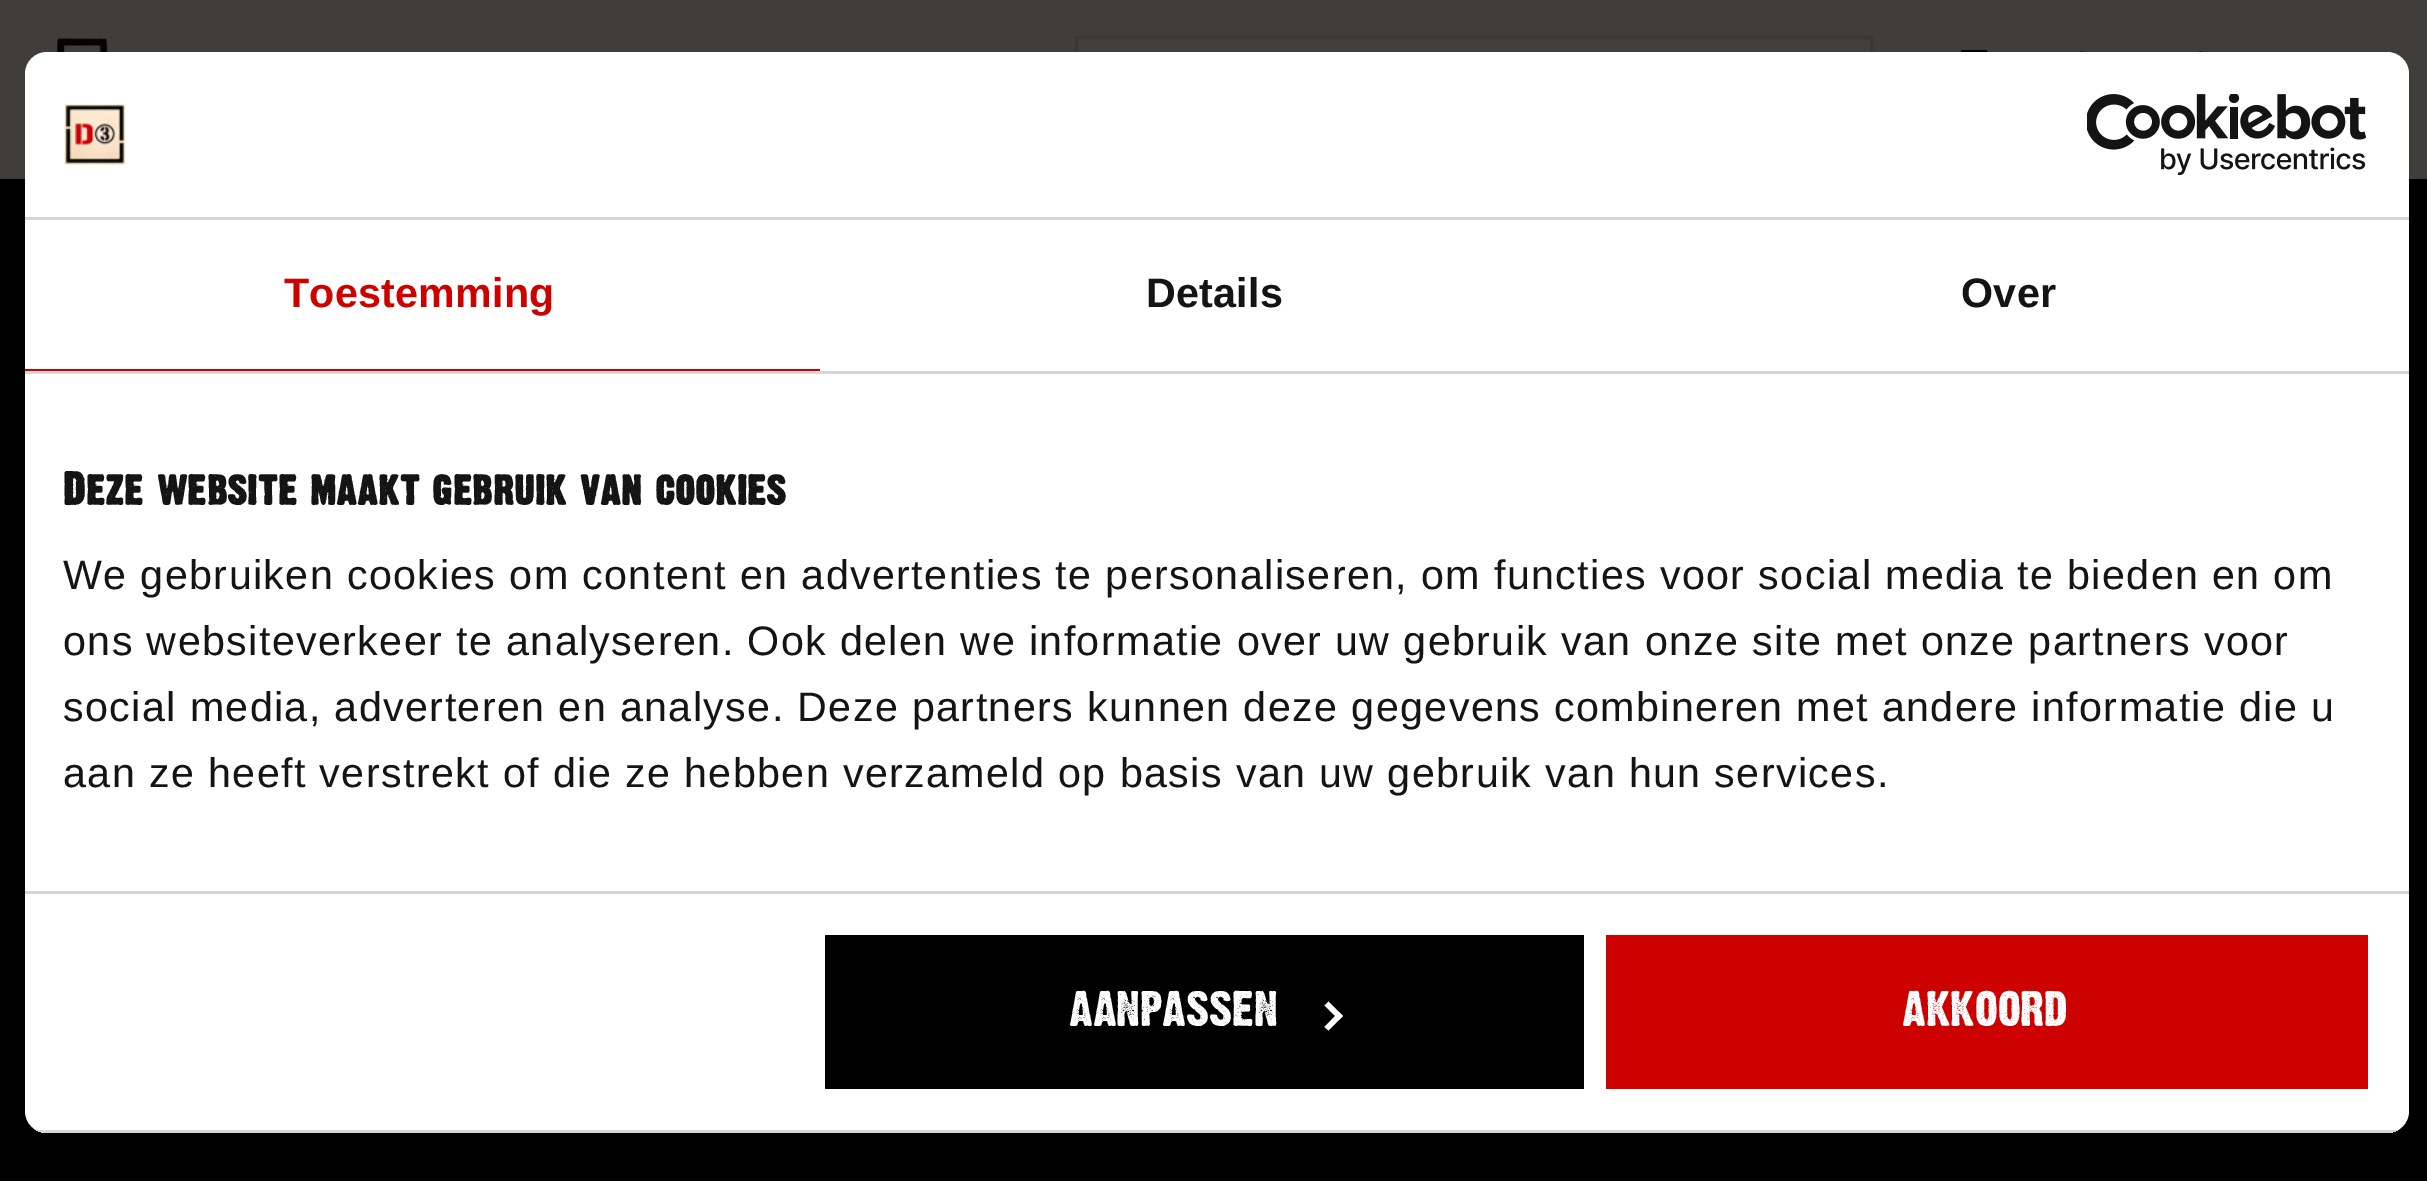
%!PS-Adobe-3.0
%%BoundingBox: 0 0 2427 1181
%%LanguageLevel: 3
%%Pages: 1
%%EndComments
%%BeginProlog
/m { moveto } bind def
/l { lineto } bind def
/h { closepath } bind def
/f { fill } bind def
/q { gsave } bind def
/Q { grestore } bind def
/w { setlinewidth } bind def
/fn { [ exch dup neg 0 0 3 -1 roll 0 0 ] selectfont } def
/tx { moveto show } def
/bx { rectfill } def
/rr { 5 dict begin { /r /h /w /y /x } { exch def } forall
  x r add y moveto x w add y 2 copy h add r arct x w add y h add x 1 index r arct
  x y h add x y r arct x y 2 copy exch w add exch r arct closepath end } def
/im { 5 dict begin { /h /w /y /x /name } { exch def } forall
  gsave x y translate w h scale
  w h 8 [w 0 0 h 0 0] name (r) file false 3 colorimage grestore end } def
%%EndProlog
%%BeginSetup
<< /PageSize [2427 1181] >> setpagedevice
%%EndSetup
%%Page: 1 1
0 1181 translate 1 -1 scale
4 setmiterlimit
0 setgray
0 0 2427 1181 bx
0.251 0.239 0.227 setrgbcolor
0 0 2427 179 bx
(image0.raw) 57 38 51 14 im
0.251 setgray
1078 39 792 13 bx
0.227 0.216 0.204 setrgbcolor
3 w
1076.5 37.5 795 107 rectstroke
(image1.raw) 1961 50 27 2 im
(image2.raw) 2079 51 7 1 im
(image3.raw) 2197 51 6 1 im
1 setgray
25 52 2384 1081 22 rr f
0.839 setgray
25 217 2384 3 bx
(image4.raw) 64 103 62 63 im
(image5.raw) 2087 94 280 82 im
25 371 2384 3 bx
0.8 0.004 0 setrgbcolor
25 369 795 2 bx
/LiberationSans-Bold 41.25 fn
284 307 m 0.25 0 (Toestemming) ashow
0.078 setgray
1146 307 m 0.25 0 (Details) ashow
1961 307 m 0.25 0 (Over) ashow
0.839 setgray
25 891 2384 3 bx
/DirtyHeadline-Bold 41.25 fn
0.078 setgray
63 505 m 0.7 0 (Deze website maakt gebruik van cookies) ashow
/LiberationSans-Regular 41.25 fn
63 589 m 1.38 0 (We gebruiken cookies om content en advertenties te personaliseren, om functies voor social media te bieden en om) ashow
63 655 m 1.38 0 (ons websiteverkeer te analyseren. Ook delen we informatie over uw gebruik van onze site met onze partners voor) ashow
63 721 m 1.38 0 (social media, adverteren en analyse. Deze partners kunnen deze gegevens combineren met andere informatie die u) ashow
63 787 m 1.38 0 (aan ze heeft verstrekt of die ze hebben verzameld op basis van uw gebruik van hun services.) ashow
q
25 52 2384 1081 22 rr clip newpath
0.839 setgray
36 1130 2362 3 bx
Q
0 setgray
825 935 759 154 bx
/DirtyHeadline-Regular 44 fn
1 setgray
(AANPASSEN) 1069 1026 tx
1328.5 1001.5 m 1343 1016 l 1339 1020 l 1324.5 1005.5 l h f
1339 1012 m 1343 1016 l 1328.5 1030.5 l 1324.5 1027 l h f
0.8 0.004 0 setrgbcolor
1606 935 762 154 bx
1 setgray
(AKKOORD) 1902 1026 tx
showpage
%%EOF
